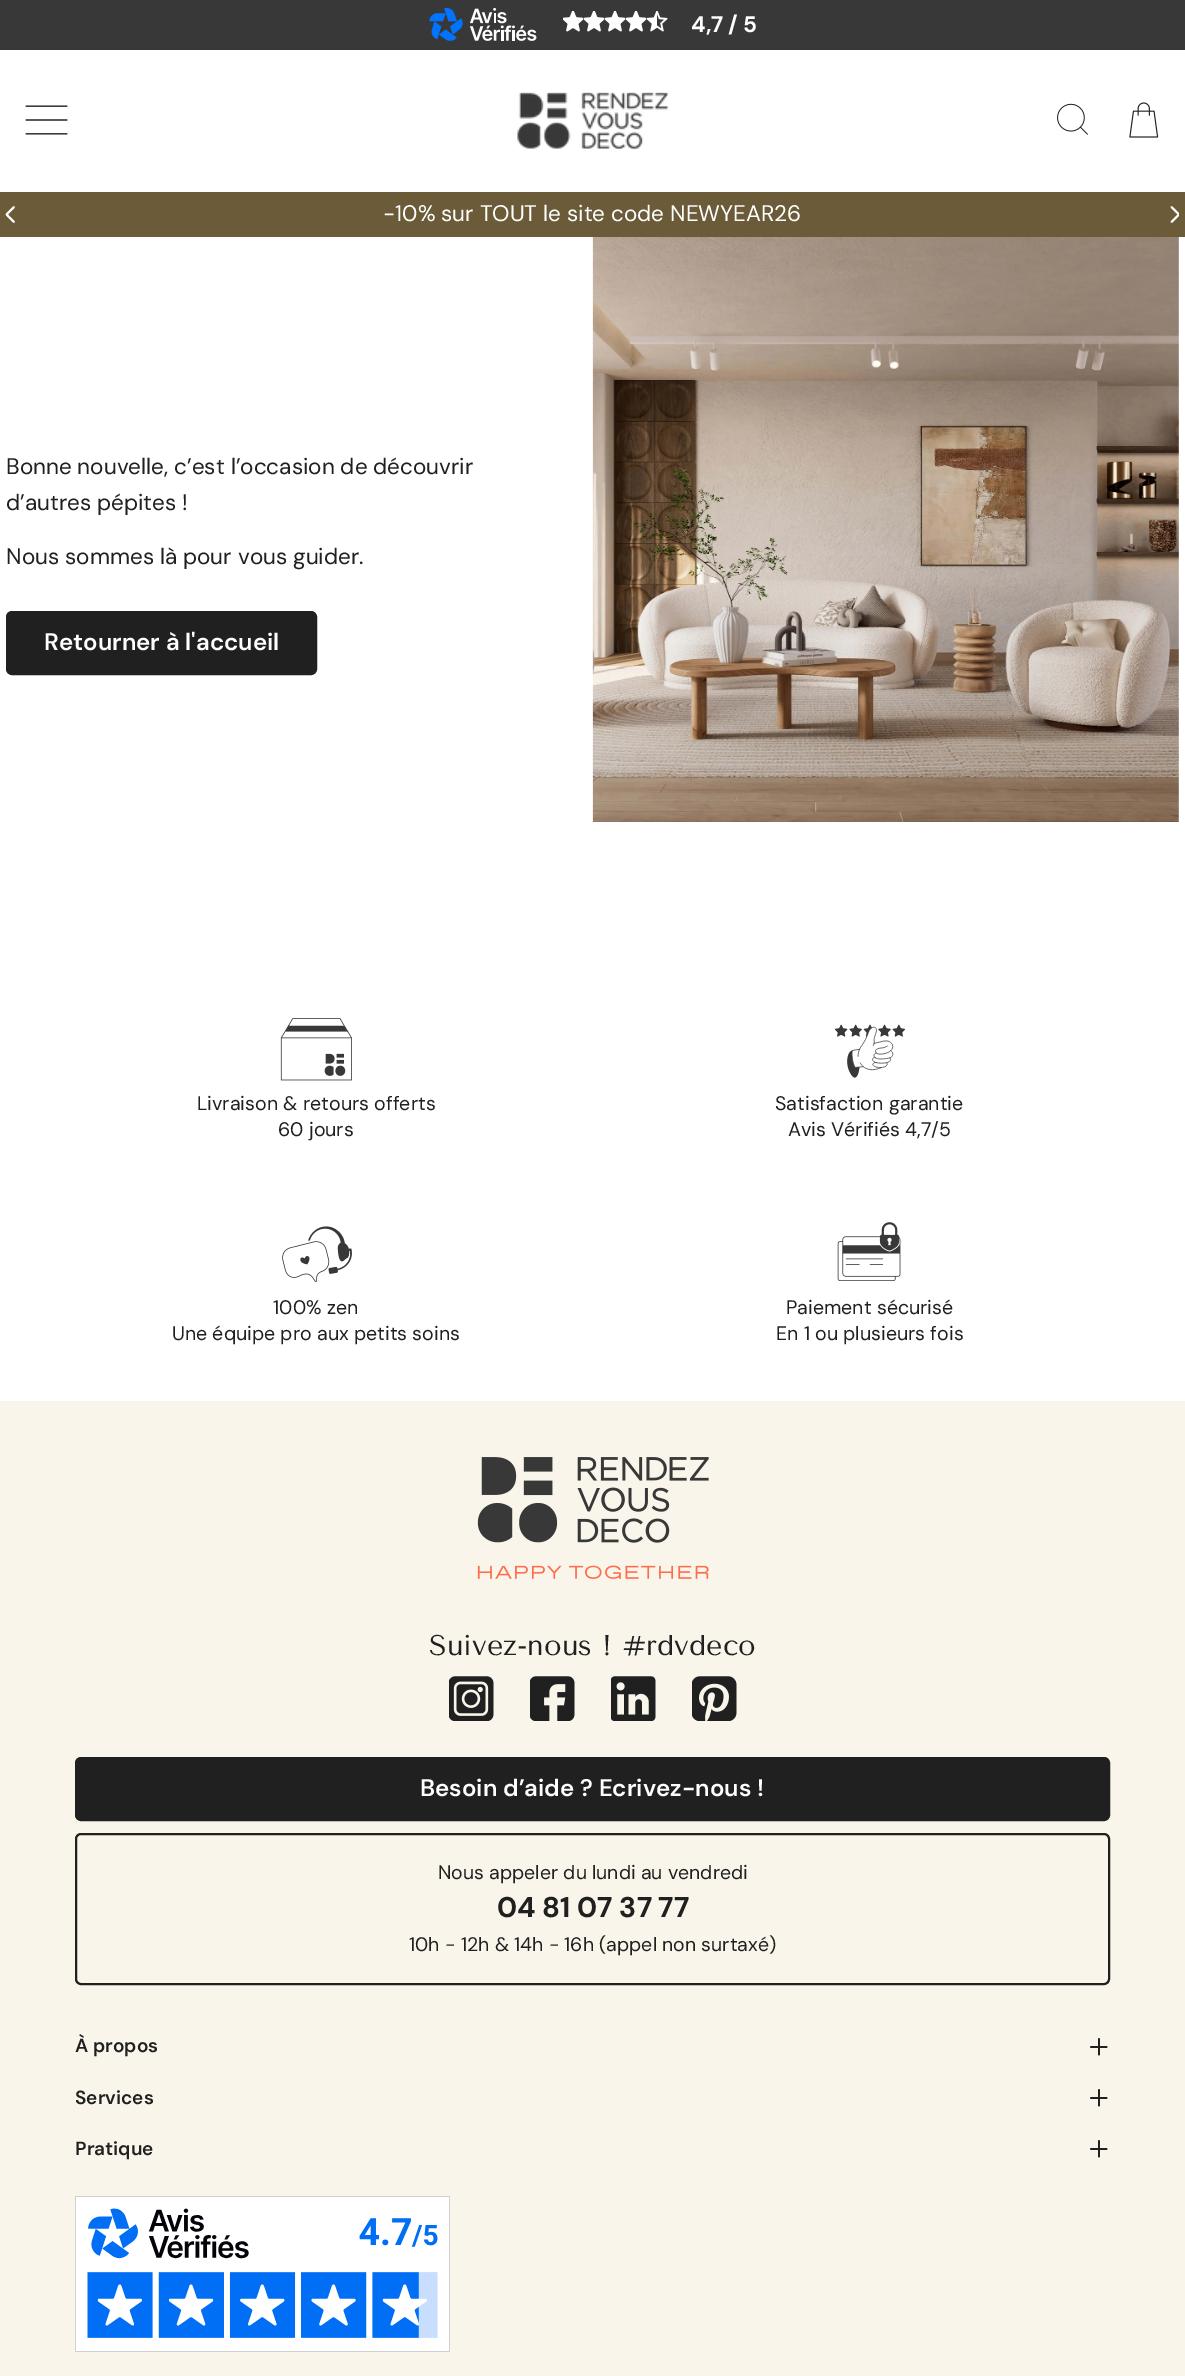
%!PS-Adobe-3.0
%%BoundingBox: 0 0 1185 2376
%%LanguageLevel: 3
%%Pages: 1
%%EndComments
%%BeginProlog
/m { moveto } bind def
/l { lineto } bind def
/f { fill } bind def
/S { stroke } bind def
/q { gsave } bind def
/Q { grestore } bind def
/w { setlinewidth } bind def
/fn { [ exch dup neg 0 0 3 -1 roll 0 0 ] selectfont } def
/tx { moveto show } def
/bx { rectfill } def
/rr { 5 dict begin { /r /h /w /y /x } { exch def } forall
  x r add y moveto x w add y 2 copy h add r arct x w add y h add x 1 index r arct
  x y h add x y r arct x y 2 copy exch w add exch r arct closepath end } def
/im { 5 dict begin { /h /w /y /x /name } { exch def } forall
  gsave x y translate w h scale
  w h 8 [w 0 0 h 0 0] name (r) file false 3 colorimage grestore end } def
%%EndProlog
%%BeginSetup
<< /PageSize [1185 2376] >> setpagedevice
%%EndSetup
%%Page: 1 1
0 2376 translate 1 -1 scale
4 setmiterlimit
1 setgray
0 0 1185 2376 bx
0.22 setgray
0 0 1185 50 bx
(image0.raw) 429 7 108 34 im
(image1.raw) 563 11 21 21 im
(image1.raw) 584 11 21 21 im
(image1.raw) 605 11 21 21 im
(image1.raw) 626 11 21 21 im
(image2.raw) 647 11 21 21 im
/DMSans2-Bold 22.5 fn
1 setgray
(4,7 / 5) 691 32 tx
(image3.raw) 25 105 43 30 im
(image4.raw) 517 92 152 58 im
(image5.raw) 1057 103 31 32 im
(image6.raw) 1129 102 30 36 im
0.42 0.357 0.224 setrgbcolor
0 192 1185 45 bx
/DMSans-Regular 22.5 fn
1 setgray
(-10% sur TOUT le site code NEWYEAR26) 383 221 tx
1.8 w
1 setlinecap
1 setlinejoin
14 222 m 6.5 214.5 l 14 207 l S
q
1163 203 16 24 rectclip
1171.5 207 m 1179 214.5 l 1171.5 222 l S
Q
0.125 setgray
(Bonne nouvelle, c’est l’occasion de découvrir) 6 474 tx
(d’autres pépites !) 6 510 tx
(Nous sommes là pour vous guider.) 6 564 tx
7 612 309 62 5 rr q f Q
2 w
0 setlinecap
0 setlinejoin
S
/DMSans-SemiBold 24 fn
1 setgray
(Retourner à l'accueil) 44 650 tx
(image7.raw) 592 237 587 585 im
(image8.raw) 280 1018 72 63 im
/DMSans2-Regular 19.6 fn
0.125 setgray
(Livraison & retours offerts) 197 1110 tx
(60 jours) 278 1136 tx
(image9.raw) 835 1024 70 54 im
(Satisfaction garantie) 775 1110 tx
(Avis Vérifiés 4,7/5) 788 1136 tx
(image10.raw) 282 1226 70 56 im
(100% zen) 273 1314 tx
(Une équipe pro aux petits soins) 172 1340 tx
(image11.raw) 837 1222 64 59 im
(Paiement sécurisé) 786 1314 tx
(En 1 ou plusieurs fois) 776 1340 tx
0.976 0.961 0.918 setrgbcolor
0 1401 1185 975 bx
(image12.raw) 477 1457 232 122 im
/TenorSans-Regular 28.5 fn
0.125 setgray
(Suivez-nous ! #rdvdeco) 429 1655 tx
(image13.raw) 449 1676 45 45 im
(image14.raw) 530 1676 45 45 im
(image15.raw) 611 1676 45 45 im
(image16.raw) 692 1676 45 45 im
76 1758 1033 62 5 rr q f Q
S
/DMSans-SemiBold 24 fn
1 setgray
(Besoin d’aide ? Ecrivez-nous !) 420 1796 tx
0.125 setgray
76 1834 1033 150 5 rr S
/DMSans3-Regular 19.5 fn
(Nous appeler du lundi au vendredi) 438 1879 tx
/DMSans-Bold 28.5 fn
(04 81 07 37 77) 497 1917 tx
/DMSans3-Regular 19.5 fn
(10h - 12h & 14h - 16h \(appel non surtaxé\)) 409 1951 tx
/DMSans2-SemiBold 19 fn
(À propos) 75 2052 tx
1.7 w
1 setlinecap
1 setlinejoin
1091 2047 m 1106.5 2047 l 1099 2039 m 1099 2054.5 l S
(Services) 75 2104 tx
1091 2098 m 1106.5 2098 l 1099 2090 m 1099 2105.5 l S
(Pratique) 75 2155 tx
1091 2149 m 1106.5 2149 l 1099 2141 m 1099 2156.5 l S
(image17.raw) 75 2196 375 156 im
showpage
%%EOF
